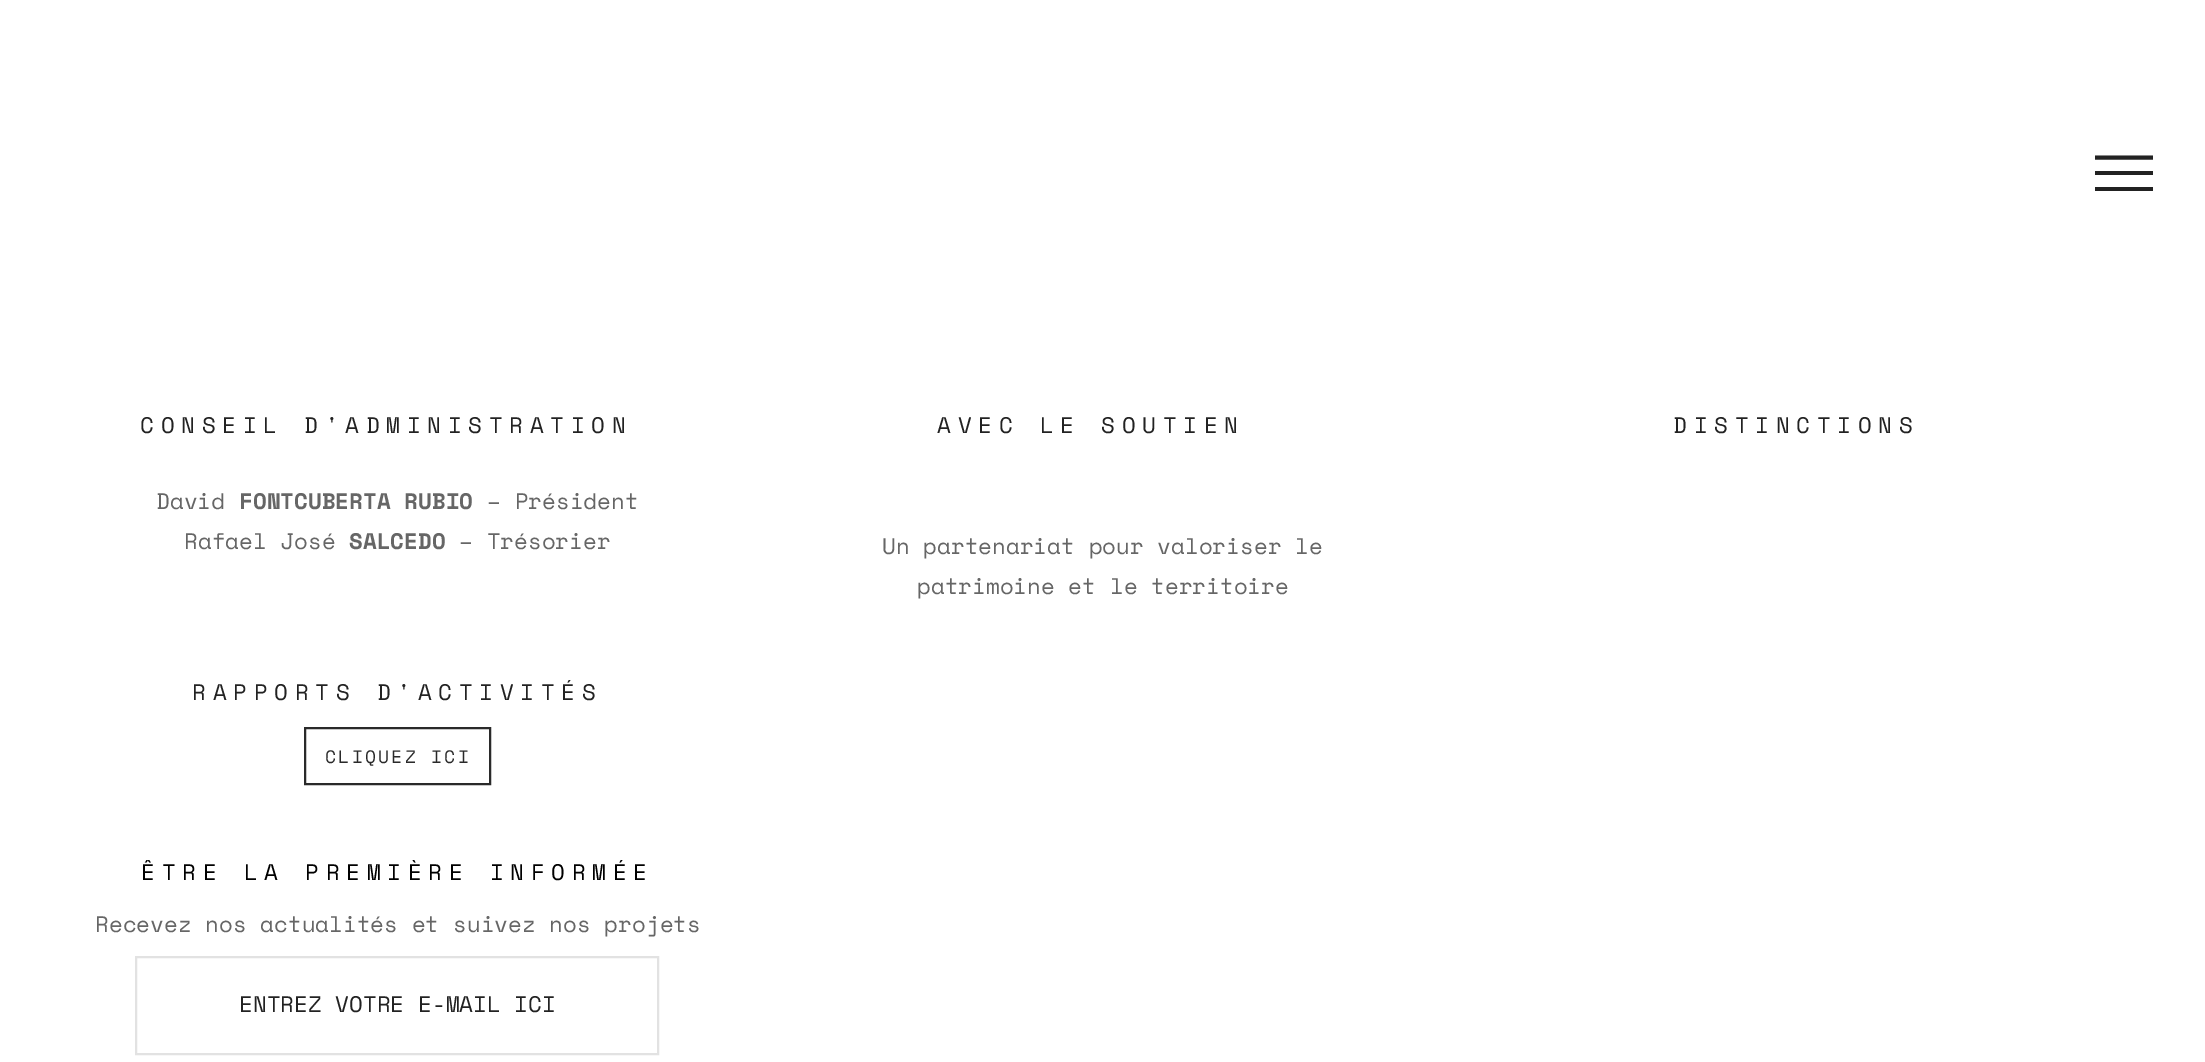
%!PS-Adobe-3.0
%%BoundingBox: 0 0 2205 1062
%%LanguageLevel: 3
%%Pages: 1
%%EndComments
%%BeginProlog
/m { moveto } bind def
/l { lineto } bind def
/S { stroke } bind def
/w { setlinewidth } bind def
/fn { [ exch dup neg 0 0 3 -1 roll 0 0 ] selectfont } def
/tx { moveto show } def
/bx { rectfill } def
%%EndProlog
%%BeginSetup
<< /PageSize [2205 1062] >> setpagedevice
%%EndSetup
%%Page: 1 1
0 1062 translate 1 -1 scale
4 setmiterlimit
1 setgray
0 0 2205 1062 bx
0.133 setgray
4.1 w
2095 157.5 m 2153 157.5 l S
2095 187 58 4 bx
2095 171 58 4 bx
/SpaceMono-Regular 22.5 fn
140 433 m 6.75 0 (CONSEIL D'ADMINISTRATION) ashow
0.4 setgray
(David) 156 509 tx
/SpaceMono-Bold 22.5 fn
(FONTCUBERTA RUBIO) 239 509 tx
/SpaceMono-Regular 22.5 fn
(– Président) 487 509 tx
(Rafael José) 184 549 tx
/SpaceMono-Bold 22.5 fn
(SALCEDO) 349 549 tx
/SpaceMono-Regular 22.5 fn
(– Trésorier) 459 549 tx
0.133 setgray
192 700 m 6.75 0 (RAPPORTS D'ACTIVITÉS) ashow
0.165 setgray
2 w
305 728 185 56 rectstroke
/SpaceMono-Regular 18 fn
325 763 m 2.25 0 (CLIQUEZ ICI) ashow
/SpaceMono-Regular 22.5 fn
0 setgray
141 880 m 6.75 0 (ÊTRE LA PREMIÈRE INFORMÉE) ashow
0.4 setgray
(Recevez nos actualités et suivez nos projets) 95 932 tx
0.886 setgray
136 957 522 97 rectstroke
0.133 setgray
(ENTREZ VOTRE E-MAIL ICI) 239 1012 tx
937 433 m 6.75 0 (AVEC LE SOUTIEN) ashow
0.4 setgray
(Un partenariat pour valoriser le) 882 554 tx
(patrimoine et le territoire) 917 594 tx
0.133 setgray
1673 433 m 6.75 0 (DISTINCTIONS) ashow
showpage
%%EOF
